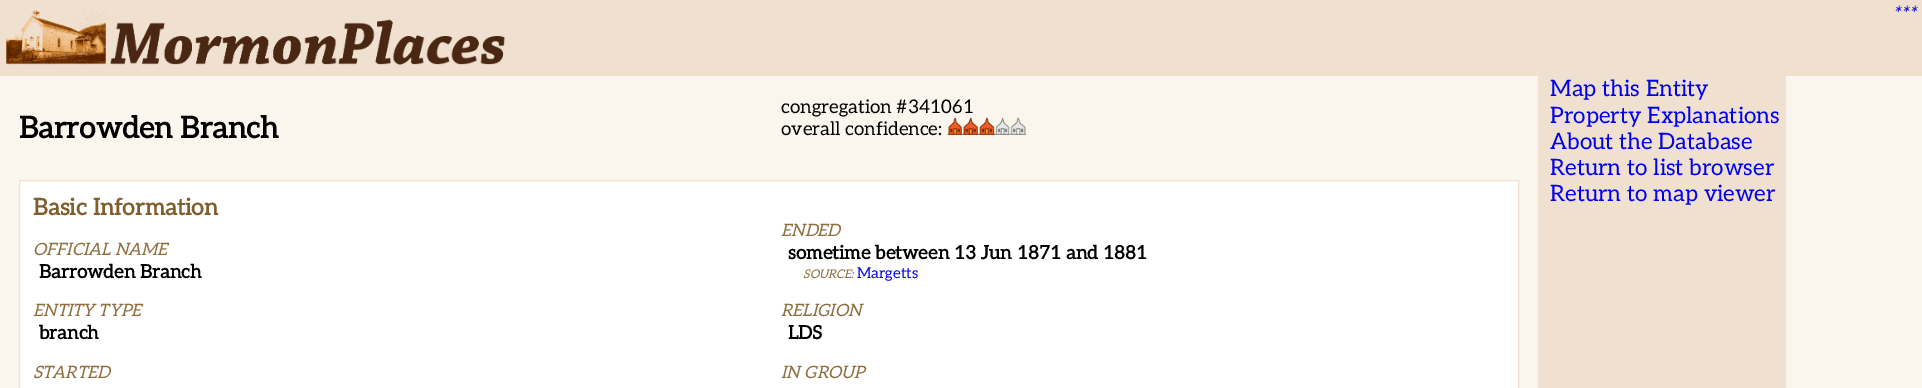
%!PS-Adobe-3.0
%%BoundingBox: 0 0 1922 388
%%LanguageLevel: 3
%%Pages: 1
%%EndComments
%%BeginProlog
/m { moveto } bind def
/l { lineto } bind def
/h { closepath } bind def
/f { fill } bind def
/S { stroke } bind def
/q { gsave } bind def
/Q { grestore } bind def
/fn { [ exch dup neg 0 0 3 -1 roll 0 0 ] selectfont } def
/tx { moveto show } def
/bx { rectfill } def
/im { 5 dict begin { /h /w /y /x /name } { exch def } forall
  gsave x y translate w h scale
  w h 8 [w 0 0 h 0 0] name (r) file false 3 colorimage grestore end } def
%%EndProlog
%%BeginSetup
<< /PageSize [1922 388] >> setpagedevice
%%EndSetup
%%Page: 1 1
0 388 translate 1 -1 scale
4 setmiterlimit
0.98 0.961 0.929 setrgbcolor
0 0 1922 388 bx
0.941 0.878 0.816 setrgbcolor
0 0 1922 76 bx
(image0.raw) 6 9 499 56 im
/Aleo-Italic 18.75 fn
0 0 0.933 setrgbcolor
(***) 1892 20 tx
/Aleo-Bold 30 fn
0 setgray
(Barrowden Branch) 19 138 tx
/Aleo-Regular 18.75 fn
(congregation #341061) 781 113 tx
(overall confidence:) 781 135 tx
(image1.raw) 947 117 16 18 im
(image2.raw) 962 117 17 18 im
(image3.raw) 978 117 17 18 im
(image4.raw) 995 117 15 18 im
(image5.raw) 1010 117 17 18 im
1 setgray
19.5 180.5 m 1518.5 180.5 l 1518.5 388.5 l 19.5 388.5 l h q f Q
0.941 0.878 0.816 setrgbcolor
S
/Aleo-Bold 23 fn
0.498 0.373 0.184 setrgbcolor
(Basic Information) 33 215 tx
/Aleo-Italic 17 fn
0.561 0.435 0.247 setrgbcolor
(OFFICIAL NAME) 33 255 tx
/Aleo-Bold 18.75 fn
0 setgray
(Barrowden Branch) 39 278 tx
/Aleo-Italic 17 fn
0.561 0.435 0.247 setrgbcolor
(ENDED) 781 236 tx
/Aleo-Bold 18.75 fn
0 setgray
(sometime between 13 Jun 1871 and 1881) 788 259 tx
/Aleo-Italic 12 fn
0.561 0.435 0.247 setrgbcolor
(SOURCE:) 803 278 tx
/Aleo-Regular 15 fn
0 0 0.933 setrgbcolor
(Margetts) 857 278 tx
/Aleo-Italic 17 fn
0.561 0.435 0.247 setrgbcolor
(ENTITY TYPE) 33 316 tx
/Aleo-Bold 18.75 fn
0 setgray
(branch) 39 339 tx
/Aleo-Italic 17 fn
0.561 0.435 0.247 setrgbcolor
(RELIGION) 781 316 tx
/Aleo-Bold 18.75 fn
0 setgray
(LDS) 788 339 tx
/Aleo-Italic 17 fn
0.561 0.435 0.247 setrgbcolor
(STARTED) 33 378 tx
(IN GROUP) 781 378 tx
0.941 0.878 0.816 setrgbcolor
1538 76 248 312 bx
/Aleo-Regular 22.5 fn
0 0 0.933 setrgbcolor
(Map this Entity) 1550 96 tx
(Property Explanations) 1550 123 tx
(About the Database) 1550 149 tx
(Return to list browser) 1550 175 tx
(Return to map viewer) 1550 201 tx
showpage
%%EOF
